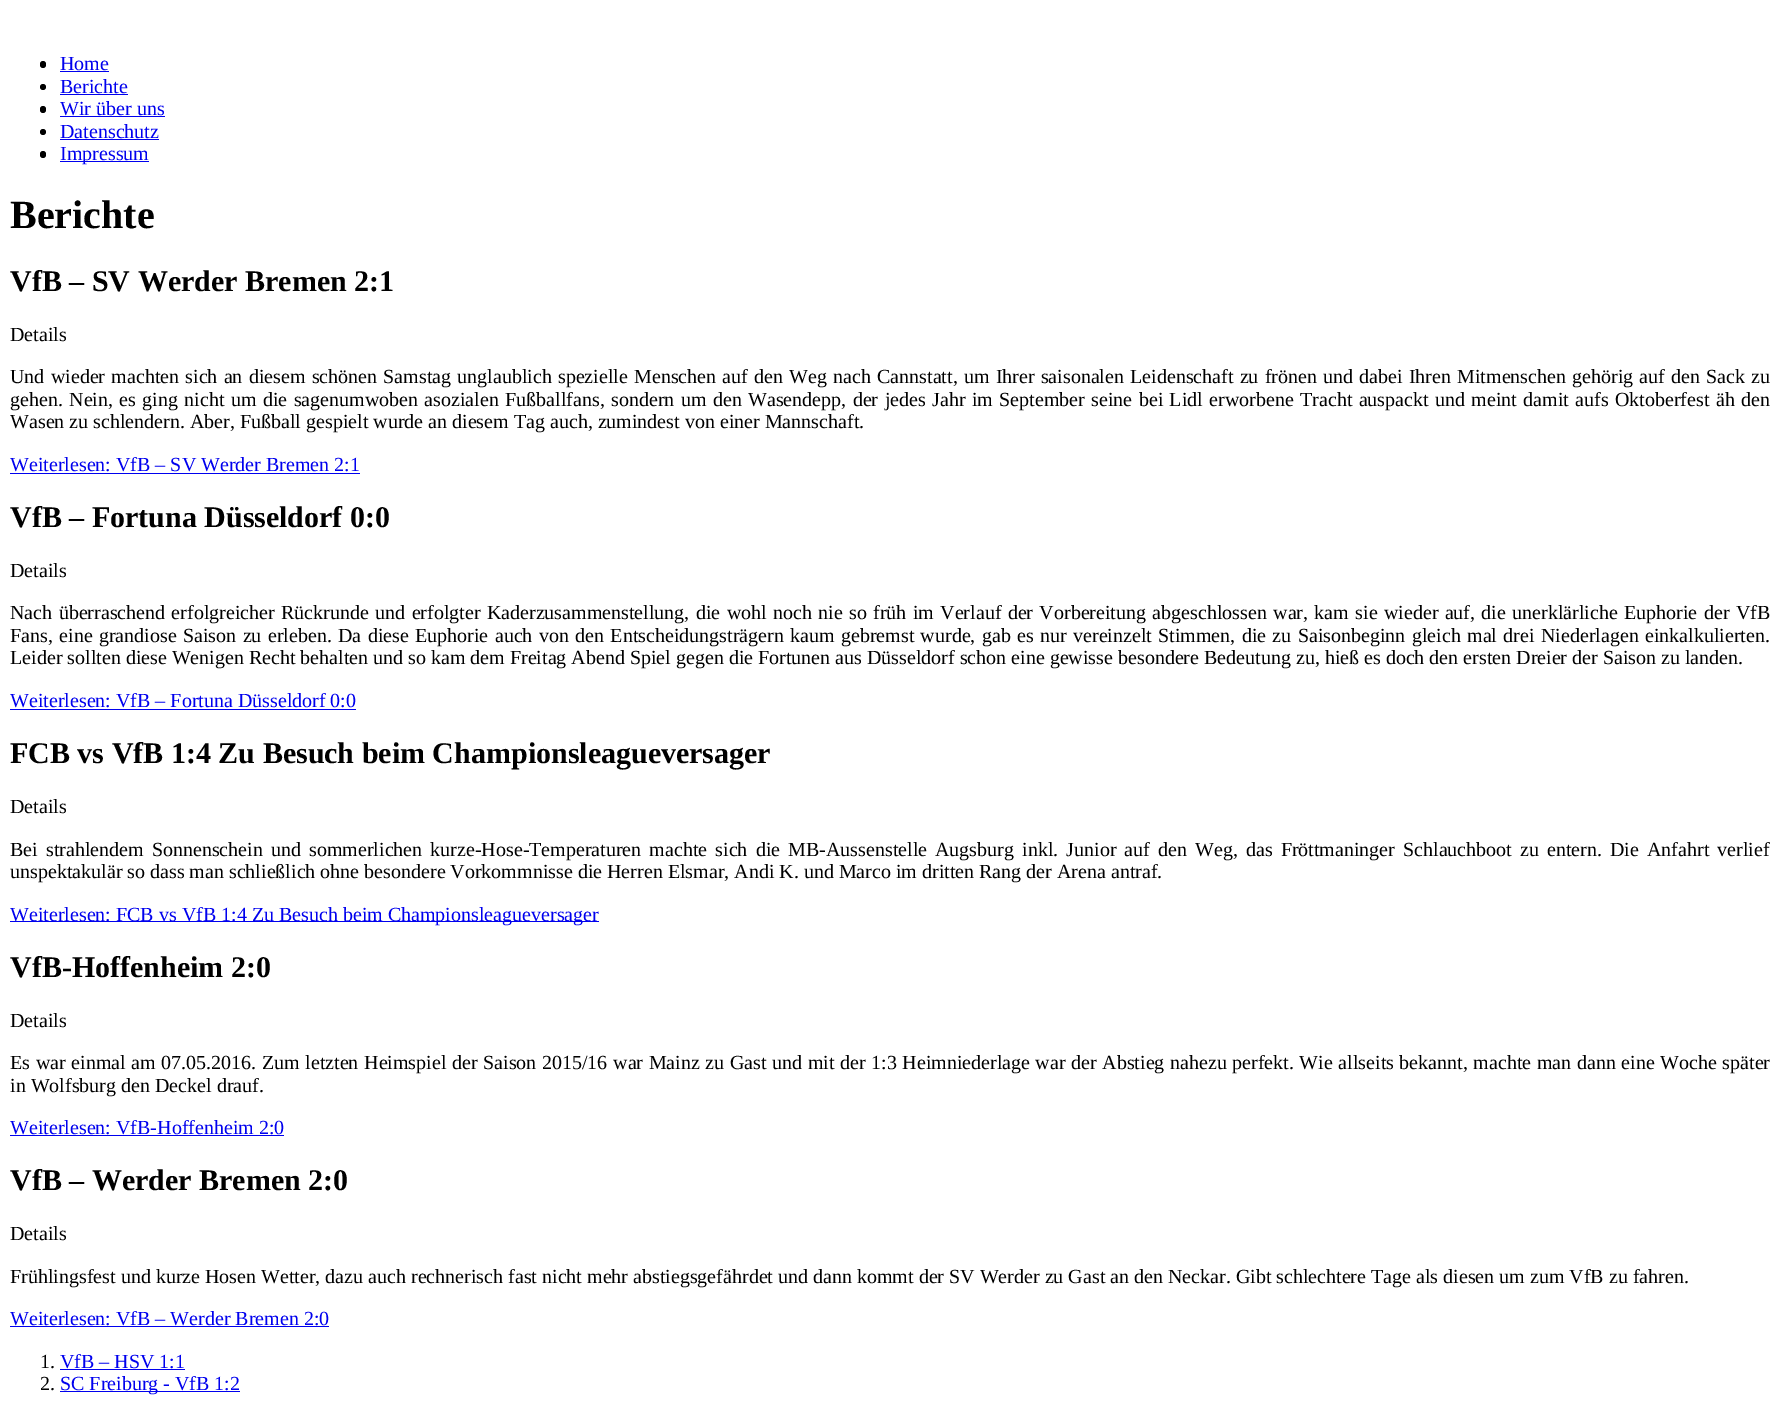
%!PS-Adobe-3.0
%%BoundingBox: 0 0 1780 1402
%%LanguageLevel: 3
%%Pages: 1
%%EndComments
%%BeginProlog
/m { moveto } bind def
/f { fill } bind def
/fn { [ exch dup neg 0 0 3 -1 roll 0 0 ] selectfont } def
/tx { moveto show } def
/bx { rectfill } def
/ci { newpath 0 360 arc closepath } def
/rr { 5 dict begin { /r /h /w /y /x } { exch def } forall
  x r add y moveto x w add y 2 copy h add r arct x w add y h add x 1 index r arct
  x y h add x y r arct x y 2 copy exch w add exch r arct closepath end } def
%%EndProlog
%%BeginSetup
<< /PageSize [1780 1402] >> setpagedevice
%%EndSetup
%%Page: 1 1
0 1402 translate 1 -1 scale
4 setmiterlimit
1 setgray
0 0 1780 1402 bx
0 setgray
40 61 6 7 3 rr f
/LiberationSerif-Regular 20 fn
0 0 0.933 setrgbcolor
(Home) 60 70 tx
60 71 49 1 bx
0 setgray
43 87 3 ci f
0 0 0.933 setrgbcolor
(Berichte) 60 93 tx
60 94 68 1 bx
0 setgray
40 106 6 7 3 rr f
0 0 0.933 setrgbcolor
(Wir über uns) 60 115 tx
60 116 105 1 bx
0 setgray
43 132 3 ci f
0 0 0.933 setrgbcolor
(Datenschutz) 60 138 tx
60 139 99 1 bx
0 setgray
40 151 6 7 3 rr f
0 0 0.933 setrgbcolor
60 161 89 1 bx
(Impressum) 60 160 tx
/LiberationSerif-Bold 40 fn
0 setgray
(Berichte) 10 228 tx
/LiberationSerif-Bold 30 fn
(VfB – SV Werder Bremen 2:1) 10 291 tx
/LiberationSerif-Regular 20 fn
(Details) 10 341 tx
10 383 m 1.2 0 32 (Und wieder machten sich an diesem schönen Samstag unglaublich spezielle Menschen auf den Weg nach Cannstatt, um Ihrer saisonalen Leidenschaft zu frönen und dabei Ihren Mitmenschen gehörig auf den Sack zu) widthshow
10 406 m 1.4 0 32 (gehen. Nein, es ging nicht um die sagenumwoben asozialen Fußballfans, sondern um den Wasendepp, der jedes Jahr im September seine bei Lidl erworbene Tracht auspackt und meint damit aufs Oktoberfest äh den) widthshow
(Wasen zu schlendern. Aber, Fußball gespielt wurde an diesem Tag auch, zumindest von einer Mannschaft.) 10 428 tx
0 0 0.933 setrgbcolor
(Weiterlesen: VfB – SV Werder Bremen 2:1) 10 471 tx
10 473 350 1 bx
/LiberationSerif-Bold 30 fn
0 setgray
(VfB – Fortuna Düsseldorf 0:0) 10 527 tx
/LiberationSerif-Regular 20 fn
(Details) 10 577 tx
10 619 m 1.35 0 32 (Nach überraschend erfolgreicher Rückrunde und erfolgter Kaderzusammenstellung, die wohl noch nie so früh im Verlauf der Vorbereitung abgeschlossen war, kam sie wieder auf, die unerklärliche Euphorie der VfB) widthshow
10 642 m 1.35 0 32 (Fans, eine grandiose Saison zu erleben. Da diese Euphorie auch von den Entscheidungsträgern kaum gebremst wurde, gab es nur vereinzelt Stimmen, die zu Saisonbeginn gleich mal drei Niederlagen einkalkulierten.) widthshow
(Leider sollten diese Wenigen Recht behalten und so kam dem Freitag Abend Spiel gegen die Fortunen aus Düsseldorf schon eine gewisse besondere Bedeutung zu, hieß es doch den ersten Dreier der Saison zu landen.) 10 664 tx
0 0 0.933 setrgbcolor
(Weiterlesen: VfB – Fortuna Düsseldorf 0:0) 10 707 tx
10 709 346 1 bx
/LiberationSerif-Bold 30 fn
0 setgray
(FCB vs VfB 1:4 Zu Besuch beim Championsleagueversager) 10 763 tx
/LiberationSerif-Regular 20 fn
(Details) 10 813 tx
10 856 m 3.1 0 32 (Bei strahlendem Sonnenschein und sommerlichen kurze-Hose-Temperaturen machte sich die MB-Aussenstelle Augsburg inkl. Junior auf den Weg, das Fröttmaninger Schlauchboot zu entern. Die Anfahrt verlief) widthshow
(unspektakulär so dass man schließlich ohne besondere Vorkommnisse die Herren Elsmar, Andi K. und Marco im dritten Rang der Arena antraf.) 10 878 tx
0 0 0.933 setrgbcolor
10 921 589 1 bx
(Weiterlesen: FCB vs VfB 1:4 Zu Besuch beim Championsleagueversager) 10 921 tx
/LiberationSerif-Bold 30 fn
0 setgray
(VfB-Hoffenheim 2:0) 10 977 tx
/LiberationSerif-Regular 20 fn
(Details) 10 1027 tx
10 1069 m 0.6 0 32 (Es war einmal am 07.05.2016. Zum letzten Heimspiel der Saison 2015/16 war Mainz zu Gast und mit der 1:3 Heimniederlage war der Abstieg nahezu perfekt. Wie allseits bekannt, machte man dann eine Woche später) widthshow
(in Wolfsburg den Deckel drauf.) 10 1092 tx
0 0 0.933 setrgbcolor
(Weiterlesen: VfB-Hoffenheim 2:0) 10 1134 tx
10 1135 274 1 bx
/LiberationSerif-Bold 30 fn
0 setgray
(VfB – Werder Bremen 2:0) 10 1190 tx
/LiberationSerif-Regular 20 fn
(Details) 10 1240 tx
(Frühlingsfest und kurze Hosen Wetter, dazu auch rechnerisch fast nicht mehr abstiegsgefährdet und dann kommt der SV Werder zu Gast an den Neckar. Gibt schlechtere Tage als diesen um zum VfB zu fahren.) 10 1283 tx
0 0 0.933 setrgbcolor
(Weiterlesen: VfB – Werder Bremen 2:0) 10 1325 tx
10 1326 319 1 bx
0 setgray
(1.) 40 1368 tx
0 0 0.933 setrgbcolor
(VfB – HSV 1:1) 60 1368 tx
60 1369 125 1 bx
0 setgray
(2.) 40 1390 tx
0 0 0.933 setrgbcolor
60 1391 180 1 bx
(SC Freiburg - VfB 1:2) 60 1390 tx
showpage
%%EOF
